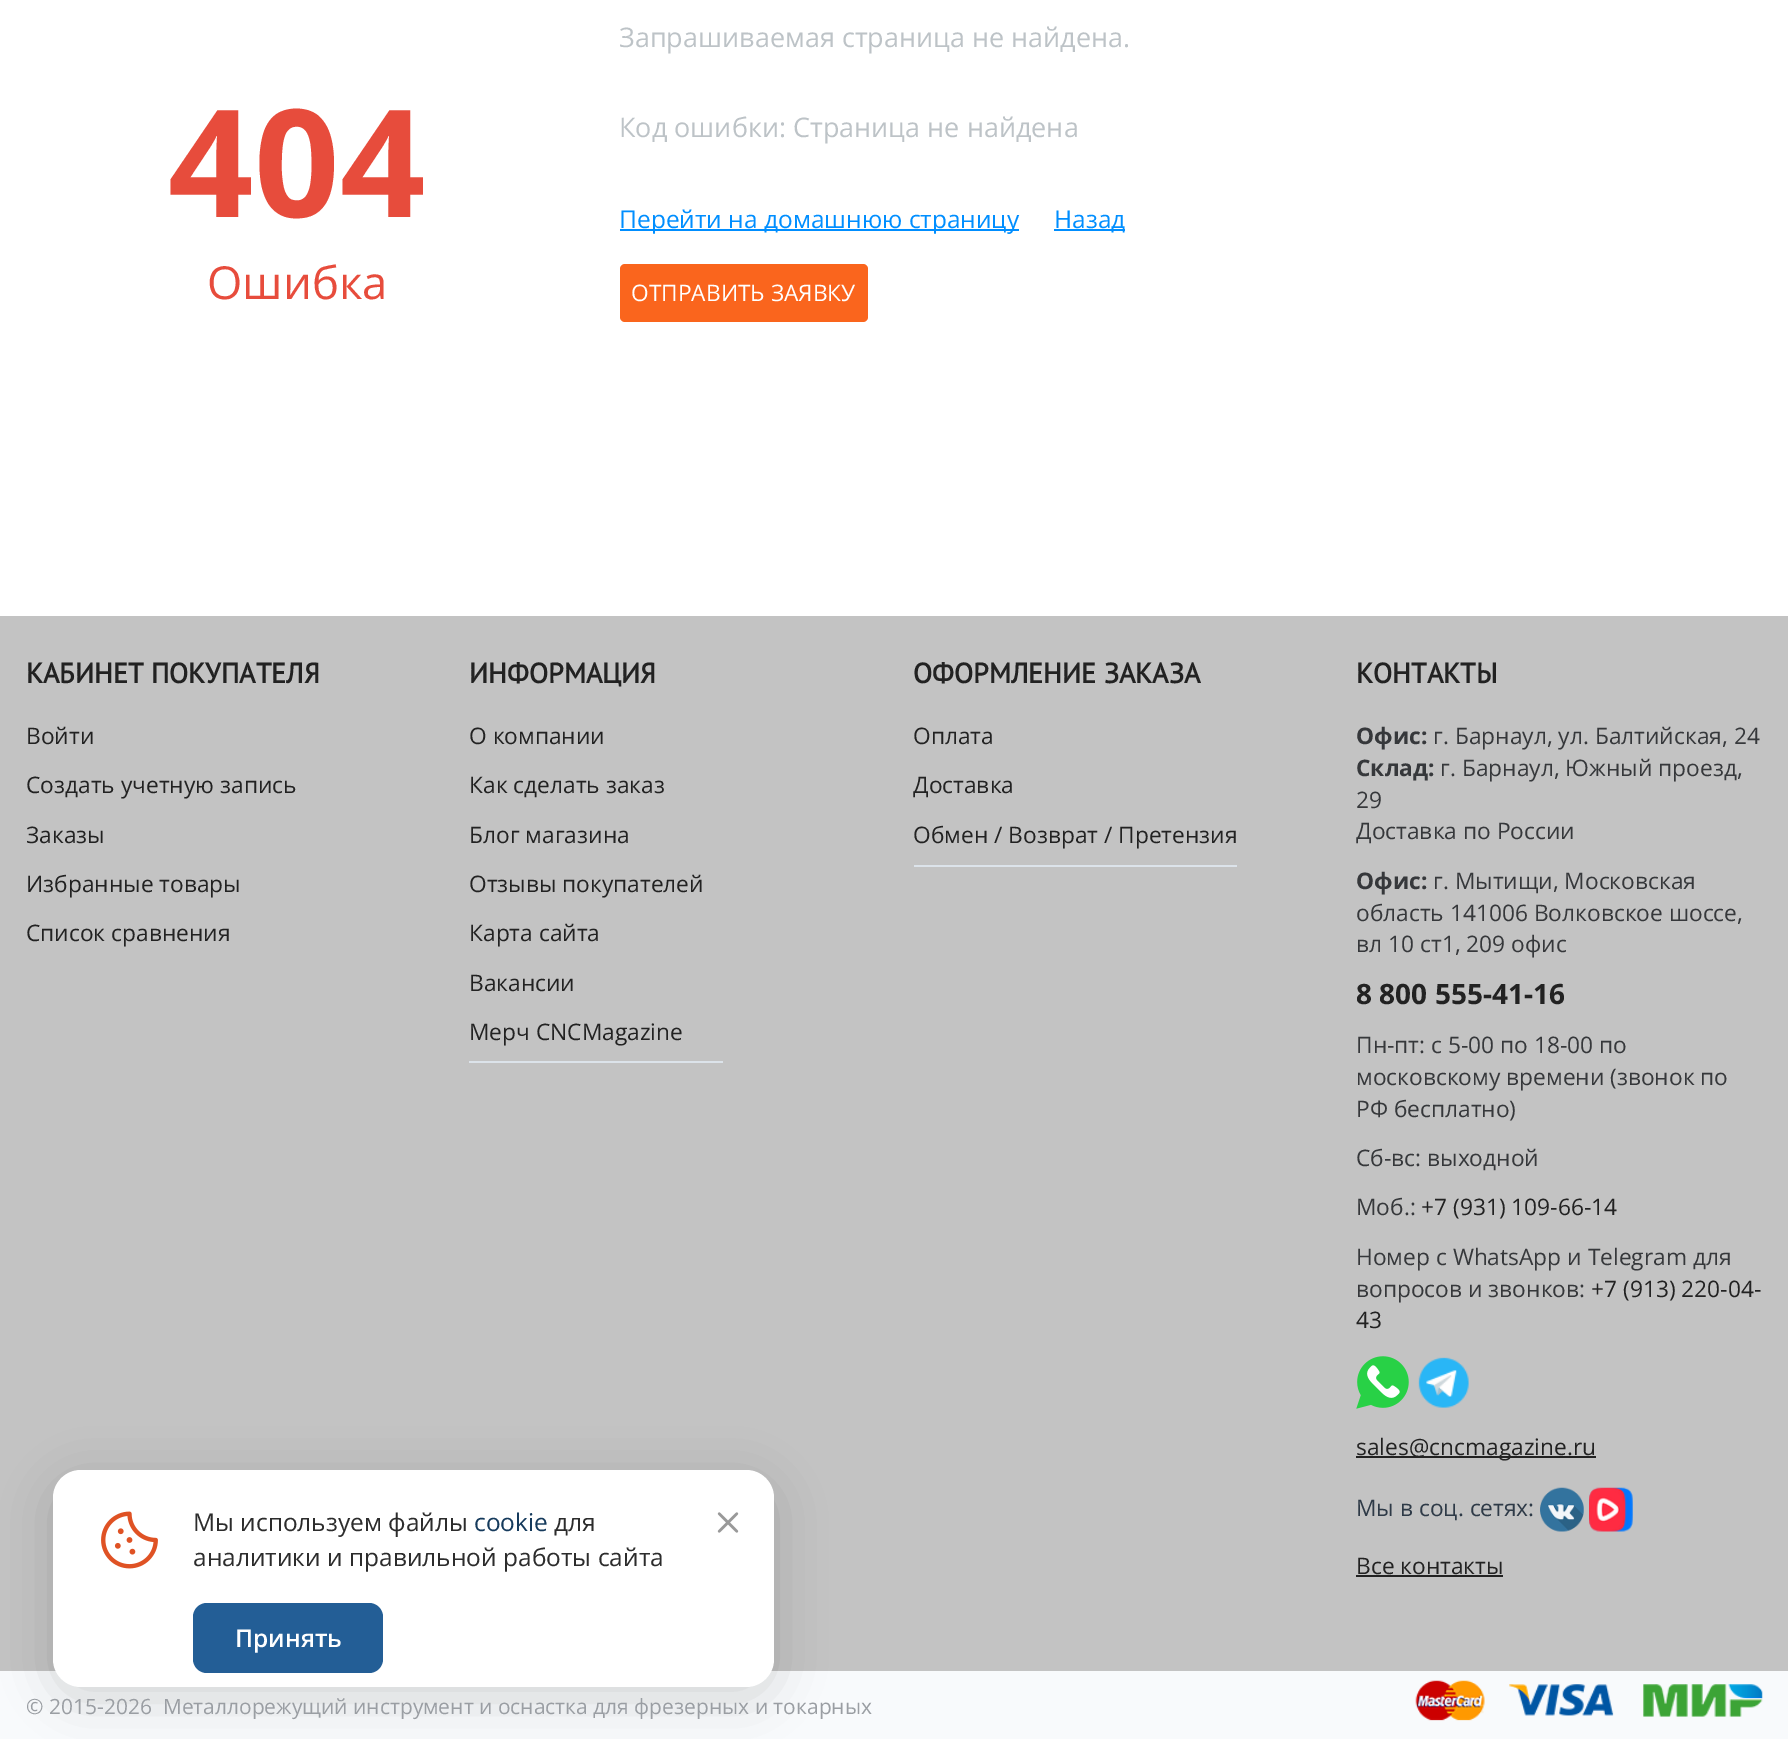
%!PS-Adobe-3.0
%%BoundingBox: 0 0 1788 1739
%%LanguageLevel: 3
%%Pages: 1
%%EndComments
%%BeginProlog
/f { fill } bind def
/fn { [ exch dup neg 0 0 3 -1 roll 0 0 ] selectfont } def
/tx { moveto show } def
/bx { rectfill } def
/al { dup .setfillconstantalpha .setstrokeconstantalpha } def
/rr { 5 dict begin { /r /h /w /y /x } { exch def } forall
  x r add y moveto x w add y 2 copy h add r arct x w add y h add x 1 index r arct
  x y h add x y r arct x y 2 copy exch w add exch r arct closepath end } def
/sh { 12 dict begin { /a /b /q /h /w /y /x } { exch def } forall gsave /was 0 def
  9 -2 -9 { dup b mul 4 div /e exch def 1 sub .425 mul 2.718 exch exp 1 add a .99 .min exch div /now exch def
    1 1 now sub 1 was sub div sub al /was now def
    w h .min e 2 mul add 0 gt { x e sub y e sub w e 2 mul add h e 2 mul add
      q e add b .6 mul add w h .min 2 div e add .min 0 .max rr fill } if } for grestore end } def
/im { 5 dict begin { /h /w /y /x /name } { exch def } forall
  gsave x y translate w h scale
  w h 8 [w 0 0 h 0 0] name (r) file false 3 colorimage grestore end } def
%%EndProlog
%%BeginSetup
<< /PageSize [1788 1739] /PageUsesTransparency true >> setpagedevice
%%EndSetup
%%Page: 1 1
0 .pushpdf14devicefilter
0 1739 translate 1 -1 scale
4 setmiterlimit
1 setgray
0 0 1788 1739 bx
/OpenSans-Bold 150 fn
0.906 0.298 0.235 setrgbcolor
(404) 168 217 tx
/OpenSans-Regular 45.5 fn
(Ошибка) 207 299 tx
/OpenSans-Regular 27 fn
0.741 0.765 0.78 setrgbcolor
(Запрашиваемая страница не найдена.) 619 47 tx
(Код ошибки: Страница не найдена) 619 137 tx
0 0.557 1 setrgbcolor
620 229 399 2 bx
/OpenSans-Regular 24.5 fn
(Перейти на домашнюю страницу) 619 228 tx
1054 229 71 2 bx
(Назад) 1054 228 tx
0.98 0.396 0.114 setrgbcolor
620 264 248 58 5 rr f
/OpenSans-Regular 22.75 fn
1 setgray
(ОТПРАВИТЬ ЗАЯВКУ) 631 301 tx
0.765 setgray
0 616 1788 1055 bx
/PTSans-Bold 28 fn
0.133 setgray
(КАБИНЕТ ПОКУПАТЕЛЯ) 26 683 tx
/OpenSans-Regular 22.75 fn
(Войти) 26 744 tx
(Создать учетную запись) 26 793 tx
(Заказы) 26 843 tx
(Избранные товары) 26 892 tx
(Список сравнения) 26 941 tx
/PTSans-Bold 28 fn
(ИНФОРМАЦИЯ) 469 683 tx
0.863 0.89 0.918 setrgbcolor
469 1061 254 2 bx
/OpenSans-Regular 22.75 fn
0.133 setgray
(О компании) 469 744 tx
(Как сделать заказ) 469 793 tx
(Блог магазина) 469 843 tx
(Отзывы покупателей) 469 892 tx
(Карта сайта) 469 941 tx
(Вакансии) 469 991 tx
(Мерч CNCMagazine) 469 1040 tx
/PTSans-Bold 28 fn
(ОФОРМЛЕНИЕ ЗАКАЗА) 913 683 tx
0.863 0.89 0.918 setrgbcolor
914 865 323 2 bx
/OpenSans-Regular 22.75 fn
0.133 setgray
(Оплата) 913 744 tx
(Доставка) 913 793 tx
(Обмен / Возврат / Претензия) 913 843 tx
/PTSans-Bold 28 fn
(КОНТАКТЫ) 1356 683 tx
/OpenSans-Bold 22.75 fn
0.212 0.22 0.231 setrgbcolor
(Офис:) 1356 744 tx
/OpenSans-Regular 22.75 fn
(г. Барнаул, ул. Балтийская, 24) 1433 744 tx
/OpenSans-Bold 22.75 fn
(Склад:) 1356 776 tx
/OpenSans-Regular 22.75 fn
(г. Барнаул, Южный проезд,) 1440 776 tx
(29) 1356 808 tx
(Доставка по России) 1356 839 tx
/OpenSans-Bold 22.75 fn
(Офис:) 1356 889 tx
/OpenSans-Regular 22.75 fn
(г. Мытищи, Московская) 1433 889 tx
(область 141006 Волковское шоссе,) 1356 921 tx
(вл 10 ст1, 209 офис) 1356 952 tx
/OpenSans-Bold 28 fn
0.133 setgray
(8 800 555-41-16) 1356 1004 tx
/OpenSans-Regular 22.75 fn
0.212 0.22 0.231 setrgbcolor
(Пн-пт: с 5-00 по 18-00 по) 1356 1053 tx
(московскому времени \(звонок по) 1356 1085 tx
(РФ бесплатно\)) 1356 1117 tx
(Сб-вс: выходной) 1356 1166 tx
(Моб.:) 1356 1215 tx
0.133 setgray
(+7 \(931\) 109-66-14) 1421 1215 tx
0.212 0.22 0.231 setrgbcolor
(Номер с WhatsApp и Telegram для) 1356 1265 tx
(вопросов и звонков:) 1356 1297 tx
0.133 setgray
(+7 \(913\) 220-04-) 1591 1297 tx
(43) 1356 1328 tx
(image0.raw) 1356 1356 53 53 im
(image1.raw) 1418 1357 51 51 im
1356 1456 240 2 bx
(sales@cncmagazine.ru) 1356 1455 tx
0.18 0.227 0.278 setrgbcolor
(Мы в соц. сетях:) 1356 1516 tx
(image2.raw) 1540 1487 44 45 im
(image3.raw) 1589 1487 44 45 im
0.133 setgray
(Все контакты) 1356 1574 tx
1356 1575 147 2 bx
0.973 0.98 0.988 setrgbcolor
0 1671 1788 68 bx
0 setgray
53 1481 721 217 28 24.5 0.15 sh
1 setgray
53 1470 721 217 28 rr f
(image4.raw) 101 1511 57 58 im
/OpenSans-Regular 24.5 fn
0.173 setgray
(Мы используем файлы) 193 1531 tx
0.082 0.227 0.361 setrgbcolor
(cookie) 474 1531 tx
0.173 setgray
(для) 554 1531 tx
(аналитики и правильной работы сайта) 193 1566 tx
0.137 0.369 0.588 setrgbcolor
193 1603 190 70 14 rr f
/OpenSans-SemiBold 24.5 fn
1 setgray
(Принять) 235 1647 tx
(image5.raw) 717 1512 22 21 im
/OpenSans-Regular 21 fn
0.604 0.62 0.639 setrgbcolor
(© 2015-2026  Металлорежущий инструмент и оснастка для фрезерных и токарных) 26 1714 tx
(image6.raw) 1415 1680 348 41 im
.poppdf14devicefilter showpage
%%EOF
